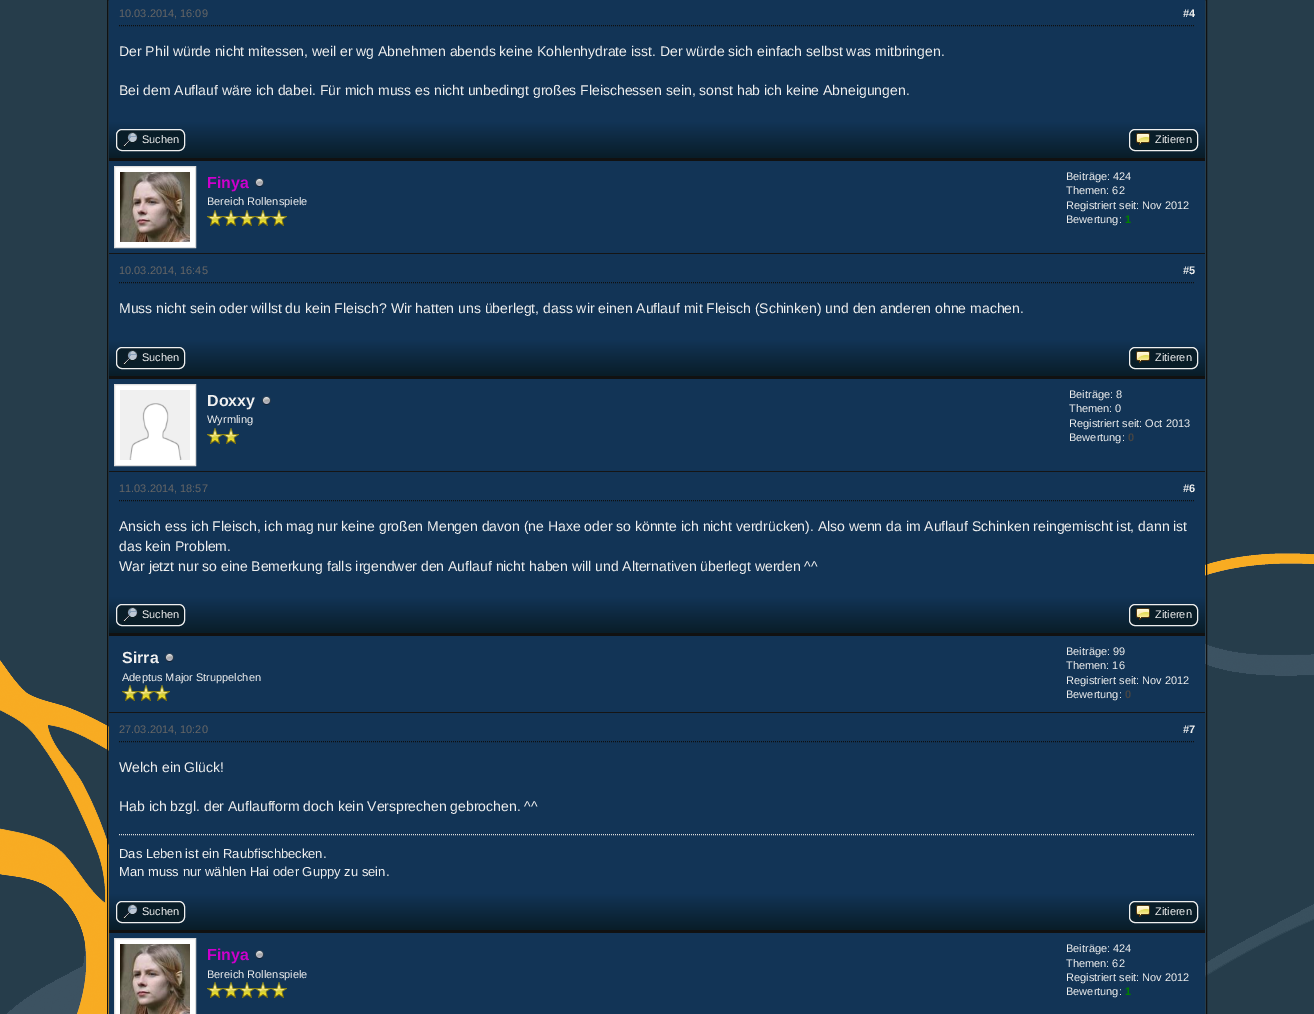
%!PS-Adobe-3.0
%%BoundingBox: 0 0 1314 1014
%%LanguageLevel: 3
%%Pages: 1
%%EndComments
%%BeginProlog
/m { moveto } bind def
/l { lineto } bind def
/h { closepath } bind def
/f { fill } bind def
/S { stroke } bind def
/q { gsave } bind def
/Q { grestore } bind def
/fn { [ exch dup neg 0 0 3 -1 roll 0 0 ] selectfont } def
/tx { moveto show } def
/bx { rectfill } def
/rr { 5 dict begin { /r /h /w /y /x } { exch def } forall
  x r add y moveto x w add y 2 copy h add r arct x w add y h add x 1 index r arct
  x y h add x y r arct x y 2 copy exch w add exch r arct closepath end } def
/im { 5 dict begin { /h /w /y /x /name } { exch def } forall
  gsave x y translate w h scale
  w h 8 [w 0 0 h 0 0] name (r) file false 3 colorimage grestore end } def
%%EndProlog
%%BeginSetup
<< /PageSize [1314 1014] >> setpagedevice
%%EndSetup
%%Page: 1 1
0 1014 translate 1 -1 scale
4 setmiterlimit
0.149 0.239 0.294 setrgbcolor
0 0 1314 1014 bx
(image0.raw) 0 660 109 354 im
(image7.raw) 1205 553 109 424 im
0.067 setgray
107.5 -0.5 1099 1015 rectstroke
0.071 0.204 0.337 setrgbcolor
109 0 1096 122 bx
0.059 setgray
[1 1] 0 setdash
119 25.5 m 1195 25.5 l S
/LiberationSans-Regular 11 fn
0.4 setgray
(10.03.2014, 16:09) 119 17 tx
/LiberationSans-Bold 11 fn
0.937 setgray
(#4) 1183 17 tx
/LiberationSans-Regular 14 fn
(Der Phil würde nicht mitessen, weil er wg Abnehmen abends keine Kohlenhydrate isst. Der würde sich einfach selbst was mitbringen.) 119 56 tx
(Bei dem Auflauf wäre ich dabei. Für mich muss es nicht unbedingt großes Fleischessen sein, sonst hab ich keine Abneigungen.) 119 95 tx
q 109 122 m 1205 122 l 1205 158 l 109 158 l h clip newpath
<< /ShadingType 2 /ColorSpace /DeviceRGB /Coords [657 122 657 158] /Extend [true true] /Function << /FunctionType 2 /Domain [0 1] /C0 [0.071 0.204 0.337] /C1 [0.035 0.114 0.157] /N 1 >> >> shfill Q
0.067 setgray
109 158 1096 3 bx
0.035 0.114 0.157 setrgbcolor
116.5 129.5 68 21 5.5 rr q f Q
0.937 setgray
[] 0 setdash
S
(image1.raw) 123 132 15 15 im
/LiberationSans-Regular 11 fn
(Suchen) 142 143 tx
0.035 0.114 0.157 setrgbcolor
1129.5 129.5 68 21 5.5 rr q f Q
0.937 setgray
S
(image2.raw) 1136 133 14 12 im
(Zitieren) 1155 143 tx
0.071 0.204 0.337 setrgbcolor
109 161 1096 92 bx
0.082 setgray
109 253 1096 1 bx
1 setgray
114.5 166.5 m 195.5 166.5 l 195.5 247.5 l 114.5 247.5 l h q f Q
0.867 setgray
S
(image3.raw) 120 172 70 70 im
/LiberationSans-Bold 16 fn
0.8 0 0.8 setrgbcolor
(Finya) 207 188 tx
(image4.raw) 255 178 9 9 im
/LiberationSans-Regular 11 fn
0.937 setgray
(Bereich Rollenspiele) 207 205 tx
(image5.raw) 207 210 16 16 im
(image5.raw) 223 210 16 16 im
(image5.raw) 239 210 16 16 im
(image5.raw) 255 210 16 16 im
(image5.raw) 271 210 16 16 im
(Beiträge: 424) 1066 180 tx
(Themen: 62) 1066 194 tx
(Registriert seit: Nov 2012) 1066 209 tx
(Bewertung:) 1066 223 tx
/LiberationSans-Bold 11 fn
0 0.502 0 setrgbcolor
(1) 1125 223 tx
0.071 0.204 0.337 setrgbcolor
109 254 1096 86 bx
0.059 setgray
[1 1] 0 setdash
119 282.5 m 1195 282.5 l S
/LiberationSans-Regular 11 fn
0.4 setgray
(10.03.2014, 16:45) 119 274 tx
/LiberationSans-Bold 11 fn
0.937 setgray
(#5) 1183 274 tx
/LiberationSans-Regular 14 fn
(Muss nicht sein oder willst du kein Fleisch? Wir hatten uns überlegt, dass wir einen Auflauf mit Fleisch \(Schinken\) und den anderen ohne machen.) 119 313 tx
q 109 340 m 1205 340 l 1205 376 l 109 376 l h clip newpath
<< /ShadingType 2 /ColorSpace /DeviceRGB /Coords [657 340 657 376] /Extend [true true] /Function << /FunctionType 2 /Domain [0 1] /C0 [0.071 0.204 0.337] /C1 [0.035 0.114 0.157] /N 1 >> >> shfill Q
0.067 setgray
109 376 1096 3 bx
0.035 0.114 0.157 setrgbcolor
116.5 347.5 68 21 5.5 rr q f Q
0.937 setgray
[] 0 setdash
S
(image1.raw) 123 350 15 15 im
/LiberationSans-Regular 11 fn
(Suchen) 142 361 tx
0.035 0.114 0.157 setrgbcolor
1129.5 347.5 68 21 5.5 rr q f Q
0.937 setgray
S
(image2.raw) 1136 351 14 12 im
(Zitieren) 1155 361 tx
0.071 0.204 0.337 setrgbcolor
109 379 1096 92 bx
0.082 setgray
109 471 1096 1 bx
1 setgray
114.5 384.5 m 195.5 384.5 l 195.5 465.5 l 114.5 465.5 l h q f Q
0.867 setgray
S
(image6.raw) 120 390 70 70 im
/LiberationSans-Bold 16 fn
0.937 setgray
(Doxxy) 207 406 tx
(image4.raw) 262 396 9 9 im
/LiberationSans-Regular 11 fn
(Wyrmling) 207 423 tx
(image5.raw) 207 428 16 16 im
(image5.raw) 223 428 16 16 im
(Beiträge: 8) 1069 398 tx
(Themen: 0) 1069 412 tx
(Registriert seit: Oct 2013) 1069 427 tx
(Bewertung:) 1069 441 tx
/LiberationSans-Bold 11 fn
0.267 setgray
(0) 1128 441 tx
0.071 0.204 0.337 setrgbcolor
109 472 1096 125 bx
0.059 setgray
[1 1] 0 setdash
119 500.5 m 1195 500.5 l S
/LiberationSans-Regular 11 fn
0.4 setgray
(11.03.2014, 18:57) 119 492 tx
/LiberationSans-Bold 11 fn
0.937 setgray
(#6) 1183 492 tx
/LiberationSans-Regular 14 fn
(Ansich ess ich Fleisch, ich mag nur keine großen Mengen davon \(ne Haxe oder so könnte ich nicht verdrücken\). Also wenn da im Auflauf Schinken reingemischt ist, dann ist) 119 531 tx
(das kein Problem.) 119 551 tx
(War jetzt nur so eine Bemerkung falls irgendwer den Auflauf nicht haben will und Alternativen überlegt werden ^^) 119 571 tx
q 109 597 m 1205 597 l 1205 633 l 109 633 l h clip newpath
<< /ShadingType 2 /ColorSpace /DeviceRGB /Coords [657 597 657 633] /Extend [true true] /Function << /FunctionType 2 /Domain [0 1] /C0 [0.071 0.204 0.337] /C1 [0.035 0.114 0.157] /N 1 >> >> shfill Q
0.067 setgray
109 633 1096 3 bx
0.035 0.114 0.157 setrgbcolor
116.5 604.5 68 21 5.5 rr q f Q
0.937 setgray
[] 0 setdash
S
(image1.raw) 123 607 15 15 im
/LiberationSans-Regular 11 fn
(Suchen) 142 618 tx
0.035 0.114 0.157 setrgbcolor
1129.5 604.5 68 21 5.5 rr q f Q
0.937 setgray
S
(image2.raw) 1136 608 14 12 im
(Zitieren) 1155 618 tx
0.071 0.204 0.337 setrgbcolor
109 636 1096 76 bx
0.082 setgray
109 712 1096 1 bx
/LiberationSans-Bold 16 fn
0.937 setgray
(Sirra) 122 663 tx
(image4.raw) 165 653 9 9 im
/LiberationSans-Regular 11 fn
(Adeptus Major Struppelchen) 122 681 tx
(image5.raw) 122 685 16 16 im
(image5.raw) 138 685 16 16 im
(image5.raw) 154 685 16 16 im
(Beiträge: 99) 1066 655 tx
(Themen: 16) 1066 669 tx
(Registriert seit: Nov 2012) 1066 684 tx
(Bewertung:) 1066 698 tx
/LiberationSans-Bold 11 fn
0.267 setgray
(0) 1125 698 tx
0.071 0.204 0.337 setrgbcolor
109 713 1096 181 bx
0.059 setgray
[1 1] 0 setdash
119 741.5 m 1195 741.5 l S
/LiberationSans-Regular 11 fn
0.4 setgray
(27.03.2014, 10:20) 119 733 tx
/LiberationSans-Bold 11 fn
0.937 setgray
(#7) 1183 733 tx
/LiberationSans-Regular 14 fn
(Welch ein Glück!) 119 772 tx
(Hab ich bzgl. der Auflaufform doch kein Versprechen gebrochen. ^^) 119 811 tx
0.867 setgray
119 834.5 m 1195 834.5 l S
/LiberationSans-Regular 13 fn
0.937 setgray
(Das Leben ist ein Raubfischbecken.) 119 858 tx
(Man muss nur wählen Hai oder Guppy zu sein.) 119 876 tx
q 109 894 m 1205 894 l 1205 930 l 109 930 l h clip newpath
<< /ShadingType 2 /ColorSpace /DeviceRGB /Coords [657 894 657 930] /Extend [true true] /Function << /FunctionType 2 /Domain [0 1] /C0 [0.071 0.204 0.337] /C1 [0.035 0.114 0.157] /N 1 >> >> shfill Q
0.067 setgray
109 930 1096 3 bx
0.035 0.114 0.157 setrgbcolor
116.5 901.5 68 21 5.5 rr q f Q
0.937 setgray
[] 0 setdash
S
(image1.raw) 123 904 15 15 im
/LiberationSans-Regular 11 fn
(Suchen) 142 915 tx
0.035 0.114 0.157 setrgbcolor
1129.5 901.5 68 21 5.5 rr q f Q
0.937 setgray
S
(image2.raw) 1136 905 14 12 im
(Zitieren) 1155 915 tx
0.071 0.204 0.337 setrgbcolor
109 933 1096 81 bx
1 setgray
114.5 938.5 m 195.5 938.5 l 195.5 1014.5 l 114.5 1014.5 l h q f Q
0.867 setgray
S
(image3.raw) 120 944 70 70 im
/LiberationSans-Bold 16 fn
0.8 0 0.8 setrgbcolor
(Finya) 207 960 tx
(image4.raw) 255 950 9 9 im
/LiberationSans-Regular 11 fn
0.937 setgray
(Bereich Rollenspiele) 207 978 tx
(image5.raw) 207 982 16 16 im
(image5.raw) 223 982 16 16 im
(image5.raw) 239 982 16 16 im
(image5.raw) 255 982 16 16 im
(image5.raw) 271 982 16 16 im
(Beiträge: 424) 1066 952 tx
(Themen: 62) 1066 967 tx
(Registriert seit: Nov 2012) 1066 981 tx
(Bewertung:) 1066 995 tx
/LiberationSans-Bold 11 fn
0 0.502 0 setrgbcolor
(1) 1125 995 tx
showpage
%%EOF
